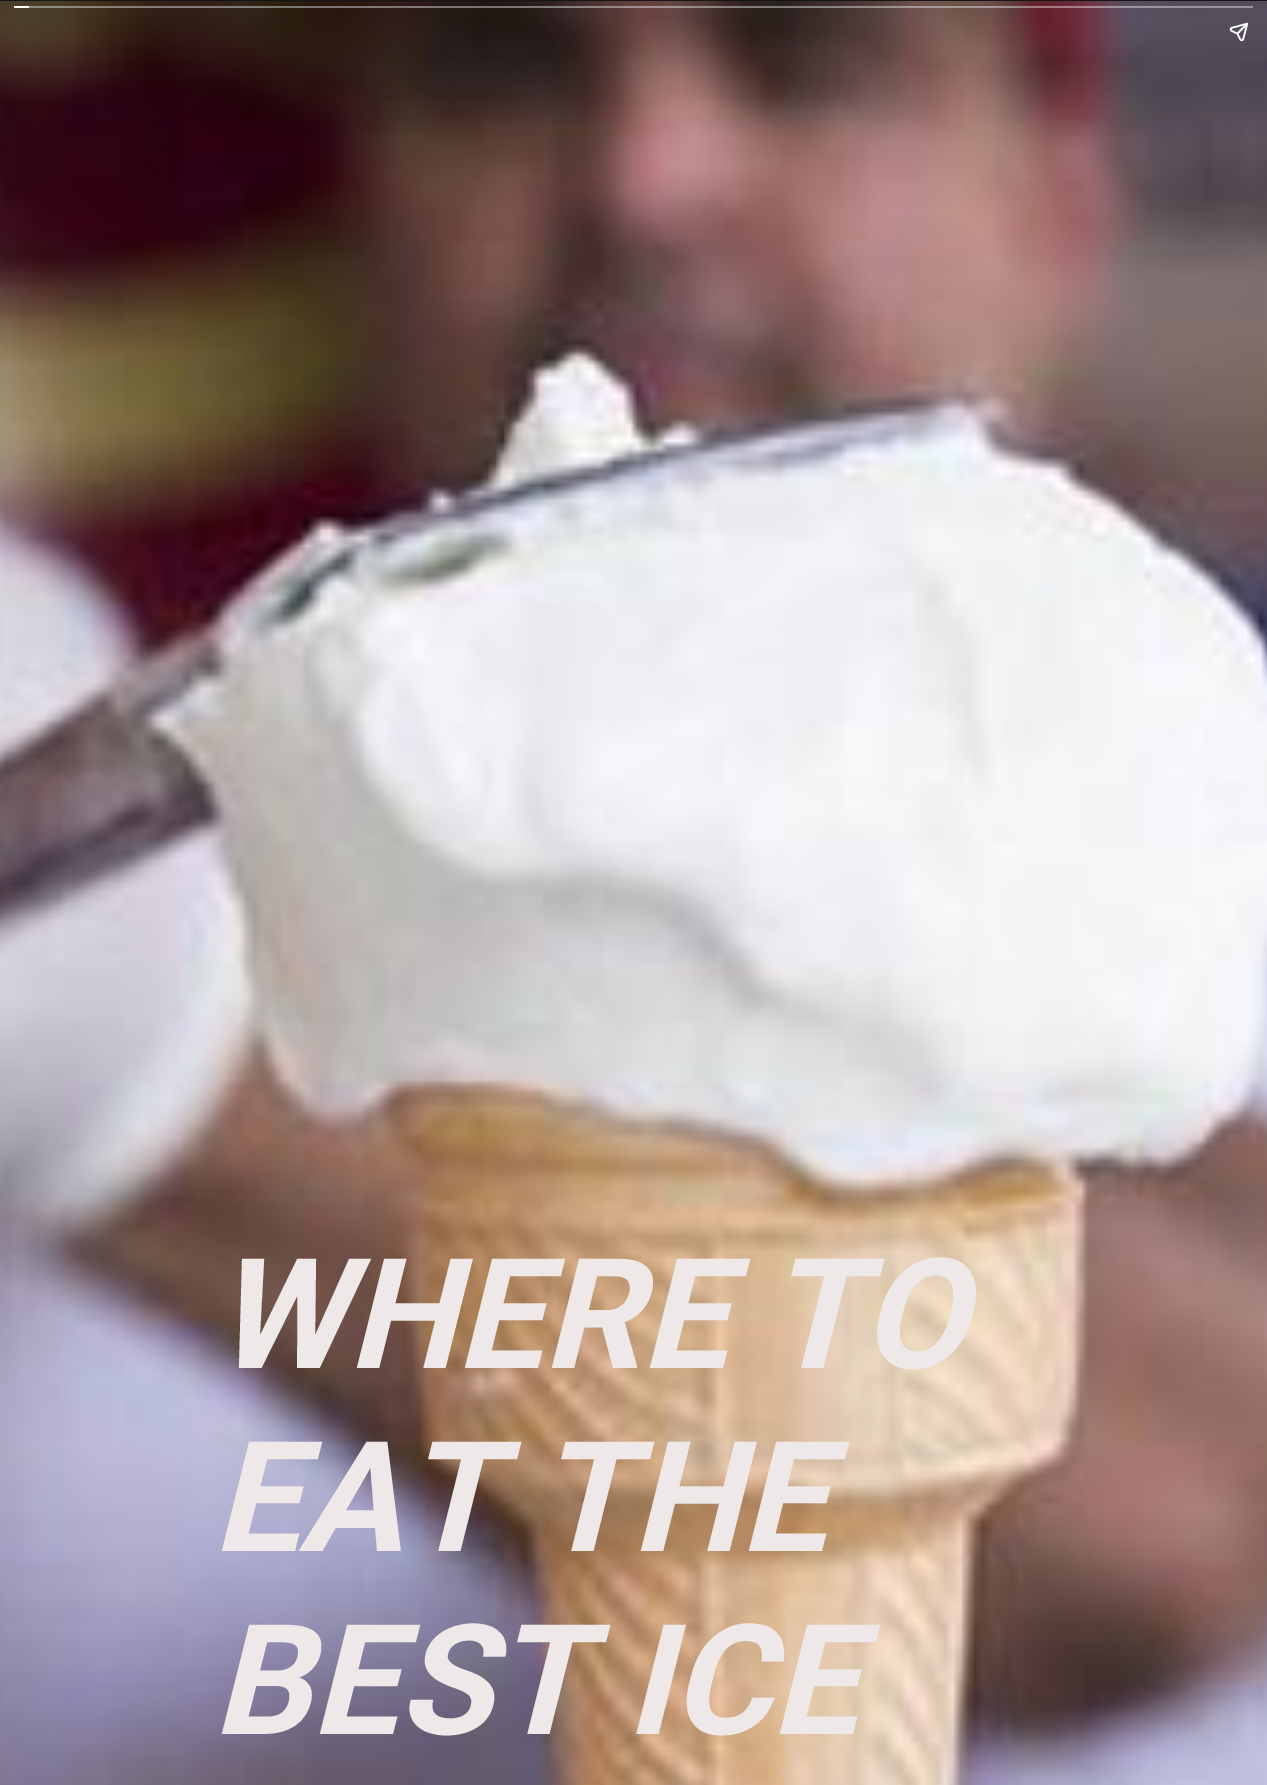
%!PS-Adobe-3.0
%%BoundingBox: 0 0 1267 1785
%%LanguageLevel: 3
%%Pages: 1
%%EndComments
%%BeginProlog
/m { moveto } bind def
/l { lineto } bind def
/c { curveto } bind def
/h { closepath } bind def
/f { fill } bind def
/fn { [ exch dup neg 0 0 3 -1 roll 0 0 ] selectfont } def
/tx { moveto show } def
/bx { rectfill } def
/al { dup .setfillconstantalpha .setstrokeconstantalpha } def
/rr { 5 dict begin { /r /h /w /y /x } { exch def } forall
  x r add y moveto x w add y 2 copy h add r arct x w add y h add x 1 index r arct
  x y h add x y r arct x y 2 copy exch w add exch r arct closepath end } def
/im { 5 dict begin { /h /w /y /x /name } { exch def } forall
  gsave x y translate w h scale
  w h 8 [w 0 0 h 0 0] name (r) file false 3 colorimage grestore end } def
%%EndProlog
%%BeginSetup
<< /PageSize [1267 1785] /PageUsesTransparency true >> setpagedevice
%%EndSetup
%%Page: 1 1
0 .pushpdf14devicefilter
0 1785 translate 1 -1 scale
4 setmiterlimit
0.075 0.082 0.086 setrgbcolor
0 0 1267 1785 bx
(image1.raw) 0 1 1267 1784 im
0.4 al
1 setgray
14 6 1239 2 1 rr f
1 al
15 6 m 29 6 l 29 8 l 15 8 l 14.5 8 14 7.5 14 7 c 14 6.5 14.5 6 15 6 c h f
(image0.raw) 1229 22 20 20 im
/Roboto-BoldItalic 153.75 fn
0.933 0.91 0.91 setrgbcolor
(WHERE TO) 212 1368 tx
(EAT THE) 212 1551 tx
(BEST ICE) 212 1734 tx
.poppdf14devicefilter showpage
%%EOF
